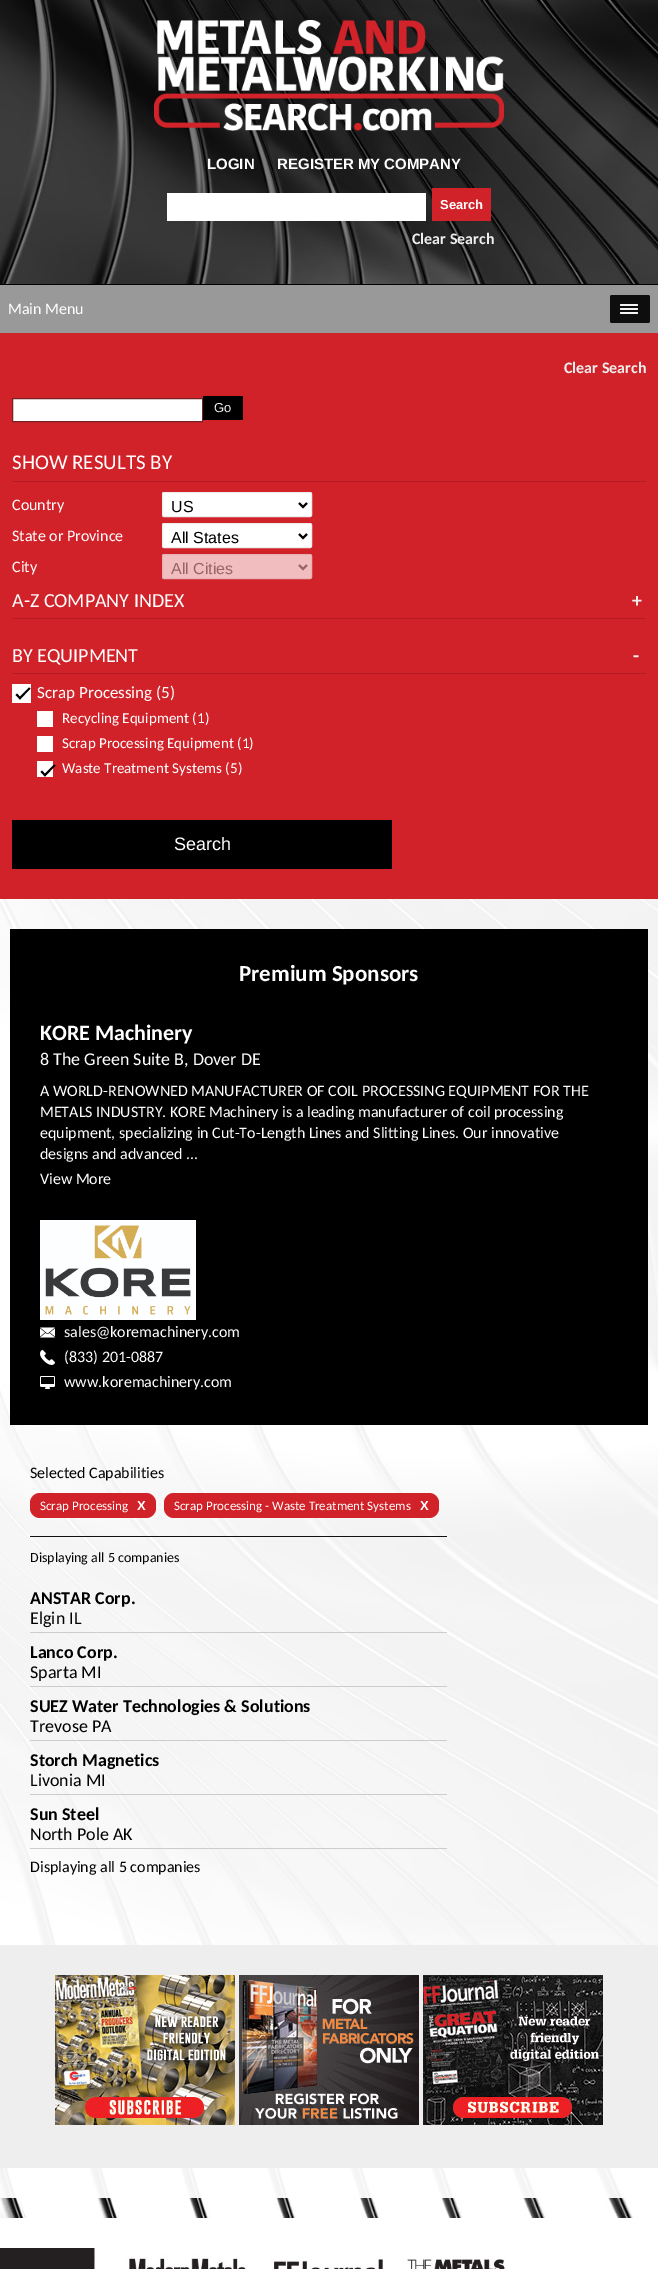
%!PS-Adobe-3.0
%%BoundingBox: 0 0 658 2269
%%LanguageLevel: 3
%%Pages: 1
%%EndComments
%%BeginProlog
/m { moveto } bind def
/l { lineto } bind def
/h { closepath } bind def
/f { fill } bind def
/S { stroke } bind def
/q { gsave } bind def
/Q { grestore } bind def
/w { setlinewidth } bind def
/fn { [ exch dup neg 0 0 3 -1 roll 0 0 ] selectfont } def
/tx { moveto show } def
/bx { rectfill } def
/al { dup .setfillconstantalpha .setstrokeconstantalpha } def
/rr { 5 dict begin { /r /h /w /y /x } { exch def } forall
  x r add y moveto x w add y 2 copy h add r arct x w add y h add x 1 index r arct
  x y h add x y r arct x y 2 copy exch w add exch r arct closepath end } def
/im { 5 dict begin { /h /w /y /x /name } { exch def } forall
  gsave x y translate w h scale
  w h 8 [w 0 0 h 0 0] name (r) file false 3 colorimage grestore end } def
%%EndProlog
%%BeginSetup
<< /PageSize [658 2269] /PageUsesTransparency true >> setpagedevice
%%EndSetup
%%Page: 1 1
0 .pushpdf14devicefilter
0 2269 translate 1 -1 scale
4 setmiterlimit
1 setgray
0 0 658 2269 bx
(image0.raw) 0 0 658 2218 im
0.52 al
0 setgray
0 0 658 284 bx
1 al
0 284 658 1 bx
(image1.raw) 154 20 350 111 im
/LiberationSans-Bold 15 fn
1 setgray
(LOGIN) 207 169 tx
(REGISTER MY COMPANY) 277 169 tx
167 193 259 28 bx
0.82 0.133 0.161 setrgbcolor
432 188 59 33 bx
/LiberationSans-Bold 13 fn
1 setgray
(Search) 440 209 tx
/Carlito-Bold 16 fn
0.933 setgray
(Clear Search) 412 244 tx
0.6 setgray
0 285 658 48 bx
/Carlito-Regular 16 fn
1 setgray
(Main Menu) 8 314 tx
0.055 setgray
610 295 40 28 2 rr f
0.961 setgray
620 304 18 2 1 rr f
620 308 18 2 1 rr f
620 312 18 2 1 rr f
0.95 al
1 setgray
0 899 658 1299 bx
1 al
0.82 0.133 0.161 setrgbcolor
0 333 658 566 bx
/Carlito-Bold 16 fn
0.933 setgray
(Clear Search) 564 373 tx
1 setgray
12.5 398.5 m 202.5 398.5 l 202.5 421.5 l 12.5 421.5 l h q f Q
0.459 0.137 0.141 setrgbcolor
S
0 setgray
203 396 40 24 bx
/LiberationSans-Regular 13 fn
0.933 setgray
(Go) 214 412 tx
0.702 0.114 0.137 setrgbcolor
12 481 634 1 bx
/Carlito-Regular 21 fn
1 setgray
(SHOW RESULTS BY) 12 469 tx
/Carlito-Regular 16 fn
(Country) 12 510 tx
162.5 492.5 149 24 1.5 rr q f Q
0.933 setgray
S
0 setgray
2 w
299 503 m 303 507 l 307 503 l S
/LiberationSans-Regular 16 fn
(US) 171 512 tx
/Carlito-Regular 16 fn
1 setgray
(State or Province) 12 541 tx
162.5 523.5 149 24 1.5 rr q f Q
0.933 setgray
1 w
S
0 setgray
2 w
299 534 m 303 538 l 307 534 l S
/LiberationSans-Regular 16 fn
(All States) 171 543 tx
/Carlito-Regular 16 fn
1 setgray
(City) 12 572 tx
0.945 0.741 0.749 setrgbcolor
162.5 554.5 149 24 1.5 rr q f Q
0.898 0.694 0.702 setrgbcolor
1 w
S
0.596 0.392 0.4 setrgbcolor
2 w
299 565 m 303 569 l 307 565 l S
/LiberationSans-Regular 16 fn
(All Cities) 171 574 tx
0.702 0.114 0.137 setrgbcolor
12 618 634 1 bx
/Carlito-Regular 20 fn
1 setgray
(A-Z COMPANY INDEX) 12 607 tx
/Carlito-Bold 20 fn
0.933 setgray
(+) 632 607 tx
0.702 0.114 0.137 setrgbcolor
12 673 634 1 bx
/Carlito-Regular 20 fn
1 setgray
(BY EQUIPMENT) 12 662 tx
/Carlito-Bold 20 fn
0.933 setgray
(-) 633 662 tx
1 setgray
12 684 19 19 bx
0 setgray
29 687.5 m 30.5 688.5 l 20 699.5 l 18.5 698 l h f
17 693.5 m 21 698 l 20 699.5 l 15.5 695 l h f
/Carlito-Regular 17 fn
1 setgray
(Scrap Processing \(5\)) 37 698 tx
37 711 16 16 bx
/Carlito-Regular 15 fn
(Recycling Equipment \(1\)) 62 723 tx
37 736 16 16 bx
(Scrap Processing Equipment \(1\)) 62 748 tx
37 761 16 16 bx
0 setgray
54 764.5 m 55.5 765.5 l 45 776.5 l 43.5 775 l h f
42 770.5 m 46 775 l 45 776.5 l 40.5 772 l h f
1 setgray
(Waste Treatment Systems \(5\)) 62 773 tx
0 setgray
12 820 380 49 bx
/LiberationSans-Regular 18 fn
1 setgray
(Search) 174 850 tx
0 setgray
10 929 638 496 bx
/Carlito-Bold 23 fn
1 setgray
(Premium Sponsors) 239 981 tx
/Carlito-Bold 22 fn
(KORE Machinery) 40 1040 tx
/Carlito-Regular 18 fn
(8 The Green Suite B, Dover DE) 40 1065 tx
/Carlito-Regular 16 fn
(A WORLD-RENOWNED MANUFACTURER OF COIL PROCESSING EQUIPMENT FOR THE) 40 1096 tx
(METALS INDUSTRY. KORE Machinery is a leading manufacturer of coil processing) 40 1117 tx
(equipment, specializing in Cut-To-Length Lines and Slitting Lines. Our innovative) 40 1138 tx
(designs and advanced ...) 40 1159 tx
(View More) 40 1184 tx
(image2.raw) 40 1220 156 100 im
(image3.raw) 40 1327 15 11 im
(sales@koremachinery.com) 64 1337 tx
(image4.raw) 40 1350 15 15 im
(\(833\) 201-0887) 64 1362 tx
(image5.raw) 40 1376 15 13 im
(www.koremachinery.com) 64 1387 tx
0 setgray
(Selected Capabilities) 30 1478 tx
0.067 setgray
30 1536 417 1 bx
0.82 0.133 0.161 setrgbcolor
30 1493 126 25 10 rr f
/Carlito-Regular 13 fn
1 setgray
(Scrap Processing) 40 1510 tx
/LiberationSans-Bold 13 fn
(X) 137 1510 tx
0.82 0.133 0.161 setrgbcolor
164 1493 275 25 10 rr f
/Carlito-Regular 13 fn
1 setgray
(Scrap Processing - Waste Treatment Systems) 174 1510 tx
/LiberationSans-Bold 13 fn
(X) 420 1510 tx
/Carlito-Regular 14 fn
0 setgray
(Displaying all 5 companies) 30 1562 tx
0.8 setgray
30 1632 417 1 bx
/Carlito-Bold 18 fn
0 setgray
(ANSTAR Corp.) 30 1604 tx
/Carlito-Regular 18 fn
(Elgin IL) 30 1624 tx
0.8 setgray
30 1686 417 1 bx
/Carlito-Bold 18 fn
0 setgray
(Lanco Corp.) 30 1658 tx
/Carlito-Regular 18 fn
(Sparta MI) 30 1678 tx
0.8 setgray
30 1740 417 1 bx
/Carlito-Bold 18 fn
0 setgray
(SUEZ Water Technologies & Solutions) 30 1712 tx
/Carlito-Regular 18 fn
(Trevose PA) 30 1732 tx
0.8 setgray
30 1794 417 1 bx
/Carlito-Bold 18 fn
0 setgray
(Storch Magnetics) 30 1766 tx
/Carlito-Regular 18 fn
(Livonia MI) 30 1786 tx
0.8 setgray
30 1848 417 1 bx
/Carlito-Bold 18 fn
0 setgray
(Sun Steel) 30 1820 tx
/Carlito-Regular 18 fn
(North Pole AK) 30 1840 tx
/Carlito-Regular 16 fn
(Displaying all 5 companies) 30 1872 tx
0.933 setgray
0 1945 658 223 bx
(image6.raw) 55 1975 180 150 im
(image7.raw) 239 1975 180 150 im
(image8.raw) 423 1975 180 150 im
(image9.raw) 0 2248 506 21 im
.poppdf14devicefilter showpage
%%EOF
